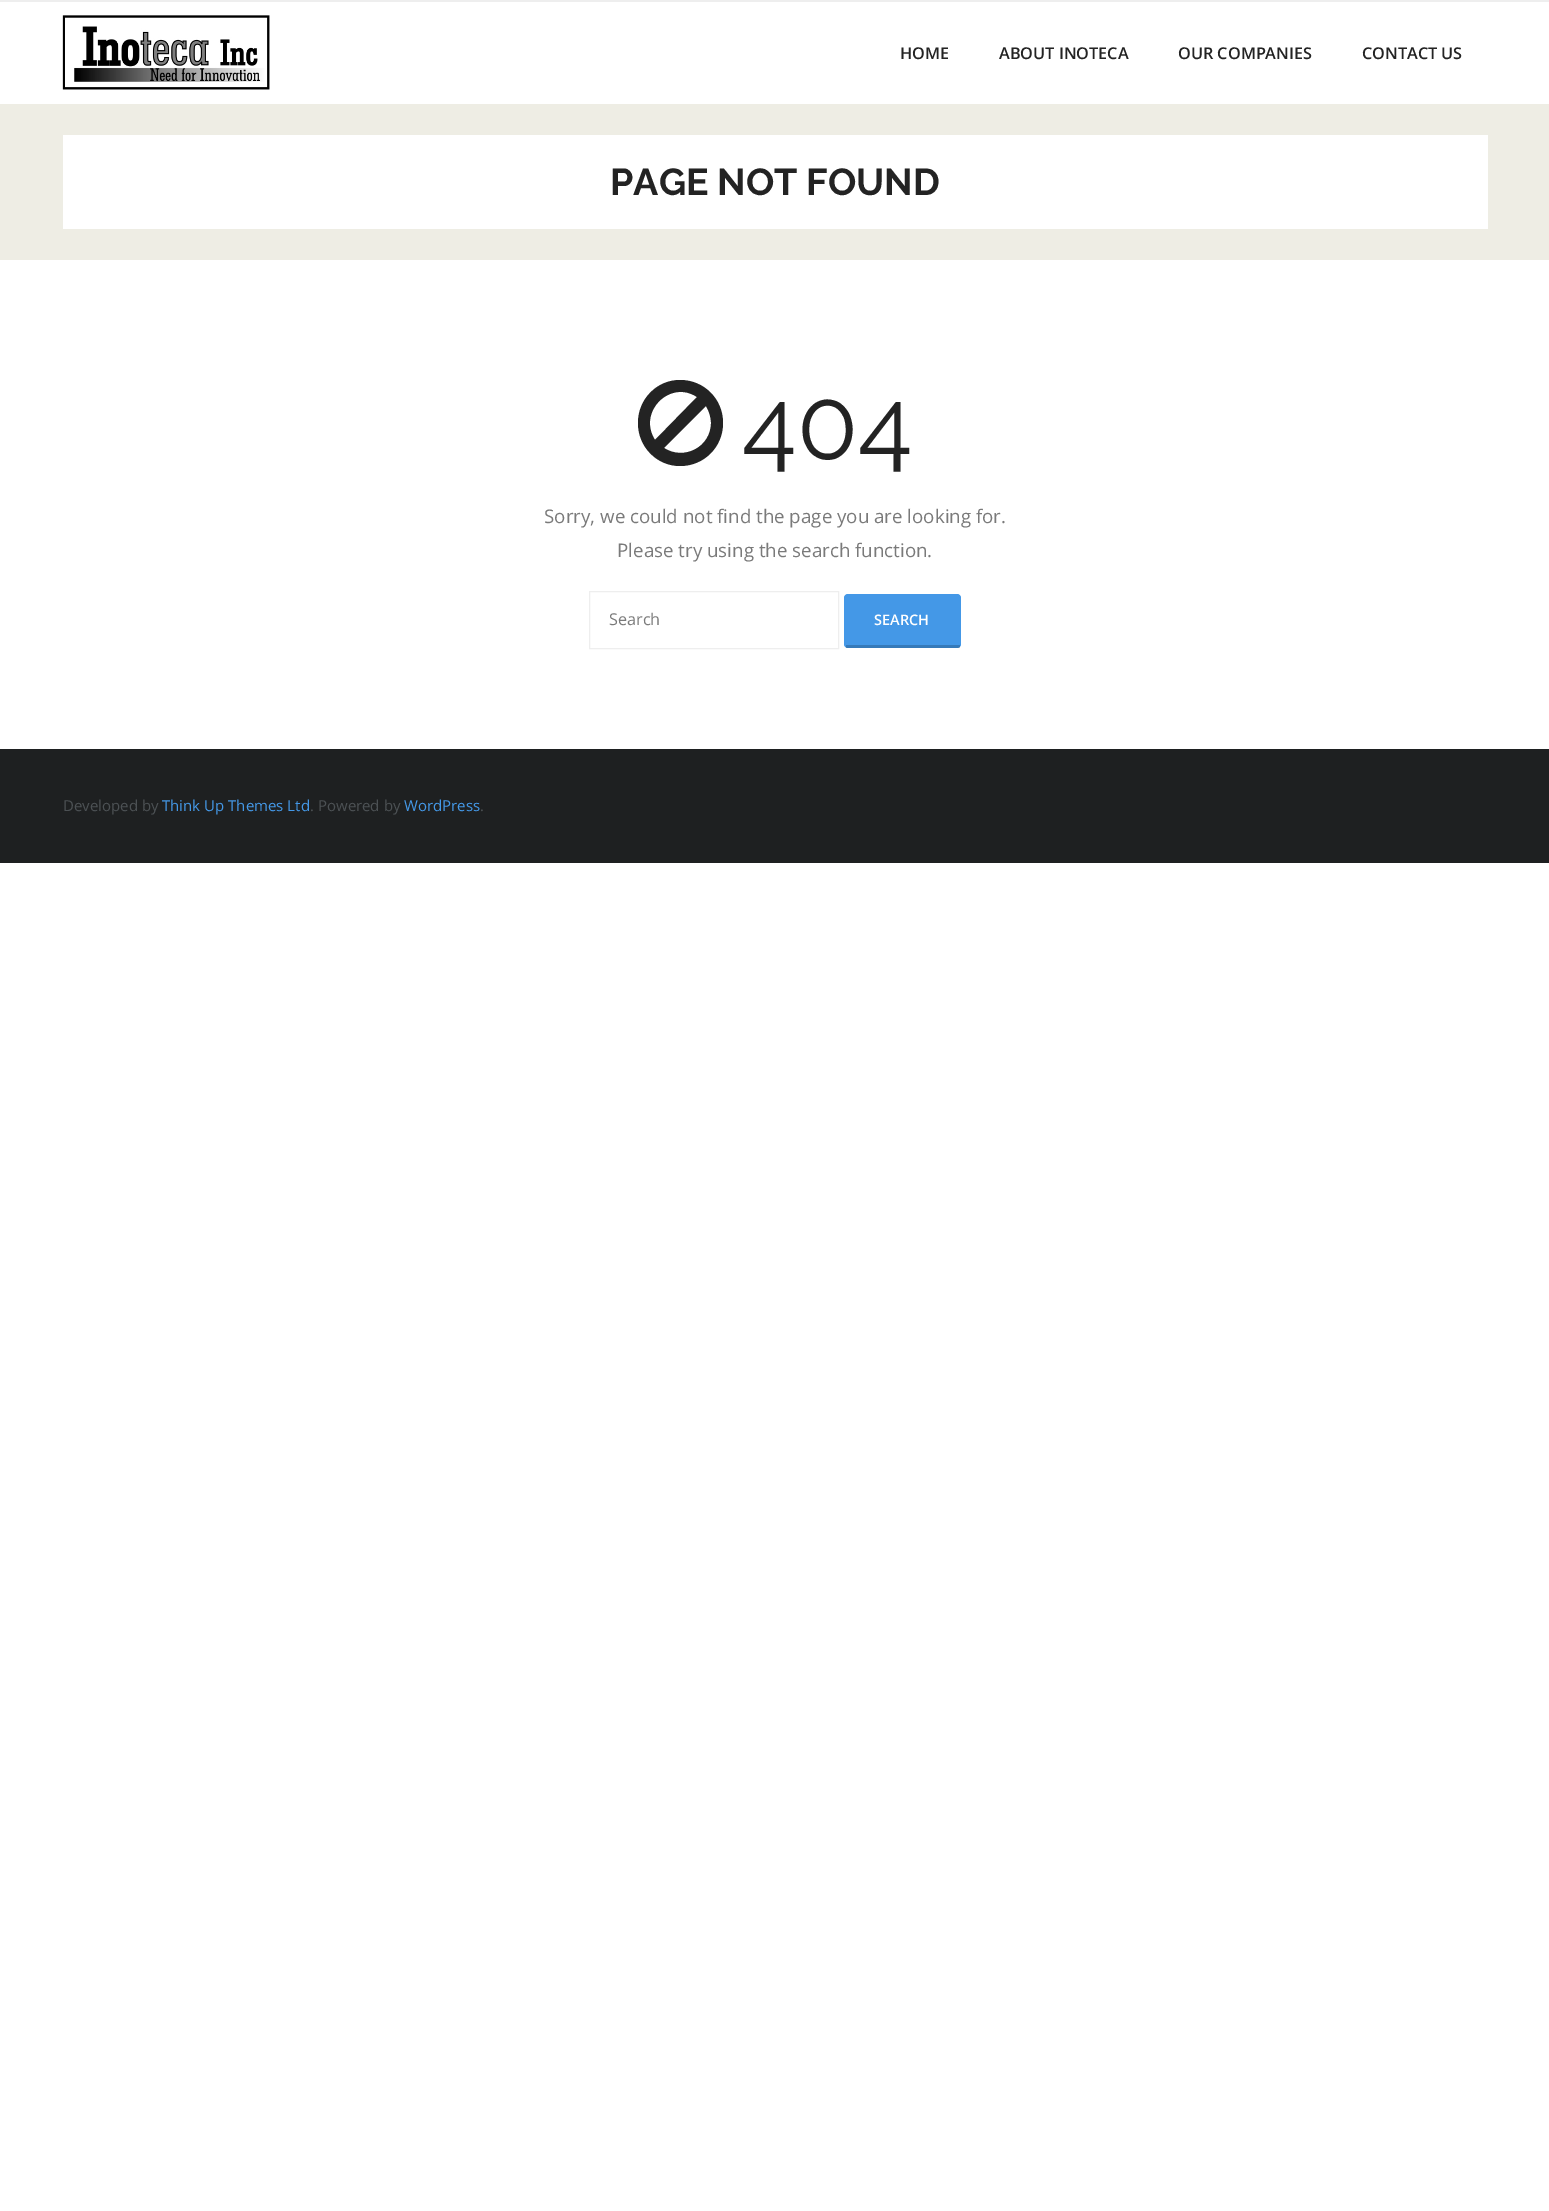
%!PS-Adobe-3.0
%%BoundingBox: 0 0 1549 2211
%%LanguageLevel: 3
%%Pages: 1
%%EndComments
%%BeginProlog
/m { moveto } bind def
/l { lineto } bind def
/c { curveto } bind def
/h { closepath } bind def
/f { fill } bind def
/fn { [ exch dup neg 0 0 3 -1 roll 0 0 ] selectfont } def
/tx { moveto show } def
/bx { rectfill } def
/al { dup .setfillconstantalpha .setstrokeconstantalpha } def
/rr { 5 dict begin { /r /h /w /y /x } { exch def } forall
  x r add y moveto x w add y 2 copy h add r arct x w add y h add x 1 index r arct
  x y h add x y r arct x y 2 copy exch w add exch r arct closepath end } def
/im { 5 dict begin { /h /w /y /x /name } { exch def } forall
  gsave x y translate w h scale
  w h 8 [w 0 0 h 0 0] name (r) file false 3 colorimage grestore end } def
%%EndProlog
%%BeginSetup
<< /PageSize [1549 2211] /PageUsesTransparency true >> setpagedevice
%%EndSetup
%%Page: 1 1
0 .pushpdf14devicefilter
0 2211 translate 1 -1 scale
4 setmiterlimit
1 setgray
0 0 1549 2211 bx
0.933 setgray
0 0 1549 2 bx
(image0.raw) 62 15 208 75 im
/OpenSans-SemiBold 16.25 fn
0.137 setgray
(HOME) 900 59 tx
(ABOUT INOTECA) 999 59 tx
(OUR COMPANIES) 1178 59 tx
(CONTACT US) 1362 59 tx
0.933 0.929 0.894 setrgbcolor
0 104 1549 156 bx
1 setgray
63 135 1425 94 bx
/Raleway-Bold 37.5 fn
0.137 setgray
(PAGE NOT FOUND) 610 195 tx
711 423 m 711 447 684 461 664 448 c 706 406 l 709 411 711 417 711 423 c h 655 440 m 637 412 670 379 697 397 c h 723 423 m 723 399 704 380 680 380 c 657 380 638 399 638 423 c 638 447 657 466 680 466 c 704 466 723 447 723 423 c h f
/Raleway-Regular 100 fn
(404) 742 459 tx
/OpenSans-Regular 18.75 fn
0.478 setgray
(Sorry, we could not find the page you are looking for.) 544 523 tx
(Please try using the search function.) 617 557 tx
0.933 setgray
589.5 591.5 249 57 rectstroke
/OpenSans-Regular 16.25 fn
0.478 setgray
(Search) 609 625 tx
0.267 0.596 0.906 setrgbcolor
844 594 117 54 4 rr f
0.2 al
0 setgray
846 645 114 3 bx
/OpenSans-SemiBold 14.5 fn
1 al
1 setgray
(SEARCH) 874 625 tx
0.118 0.125 0.129 setrgbcolor
0 749 1549 114 bx
/OpenSans-Regular 15 fn
0.298 0.318 0.329 setrgbcolor
(Developed by) 63 811 tx
0.267 0.596 0.906 setrgbcolor
(Think Up Themes Ltd) 162 811 tx
0.298 0.318 0.329 setrgbcolor
(. Powered by) 310 811 tx
0.267 0.596 0.906 setrgbcolor
(WordPress) 404 811 tx
0.298 0.318 0.329 setrgbcolor
(.) 480 811 tx
.poppdf14devicefilter showpage
%%EOF
